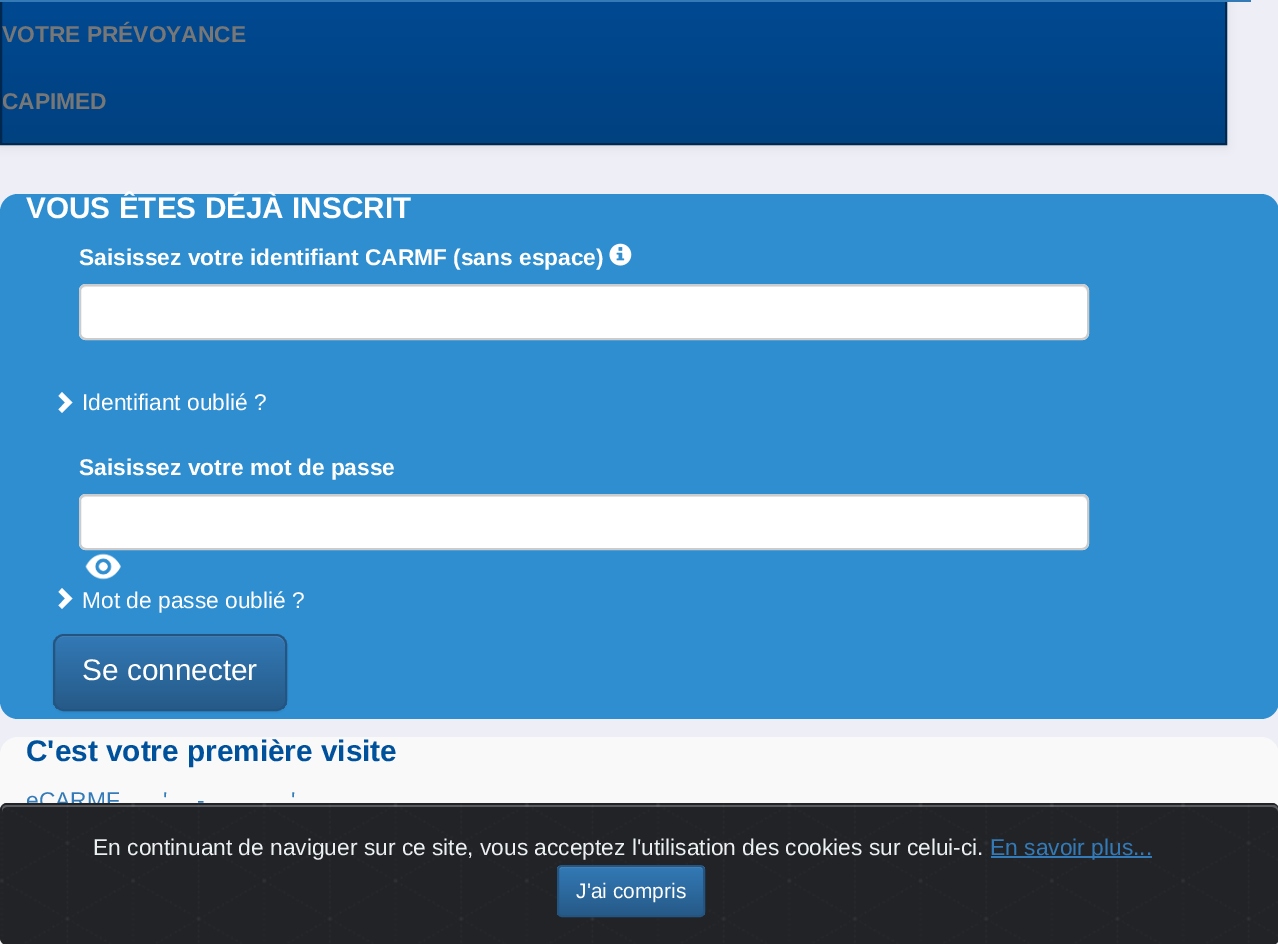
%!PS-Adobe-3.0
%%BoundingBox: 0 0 1278 944
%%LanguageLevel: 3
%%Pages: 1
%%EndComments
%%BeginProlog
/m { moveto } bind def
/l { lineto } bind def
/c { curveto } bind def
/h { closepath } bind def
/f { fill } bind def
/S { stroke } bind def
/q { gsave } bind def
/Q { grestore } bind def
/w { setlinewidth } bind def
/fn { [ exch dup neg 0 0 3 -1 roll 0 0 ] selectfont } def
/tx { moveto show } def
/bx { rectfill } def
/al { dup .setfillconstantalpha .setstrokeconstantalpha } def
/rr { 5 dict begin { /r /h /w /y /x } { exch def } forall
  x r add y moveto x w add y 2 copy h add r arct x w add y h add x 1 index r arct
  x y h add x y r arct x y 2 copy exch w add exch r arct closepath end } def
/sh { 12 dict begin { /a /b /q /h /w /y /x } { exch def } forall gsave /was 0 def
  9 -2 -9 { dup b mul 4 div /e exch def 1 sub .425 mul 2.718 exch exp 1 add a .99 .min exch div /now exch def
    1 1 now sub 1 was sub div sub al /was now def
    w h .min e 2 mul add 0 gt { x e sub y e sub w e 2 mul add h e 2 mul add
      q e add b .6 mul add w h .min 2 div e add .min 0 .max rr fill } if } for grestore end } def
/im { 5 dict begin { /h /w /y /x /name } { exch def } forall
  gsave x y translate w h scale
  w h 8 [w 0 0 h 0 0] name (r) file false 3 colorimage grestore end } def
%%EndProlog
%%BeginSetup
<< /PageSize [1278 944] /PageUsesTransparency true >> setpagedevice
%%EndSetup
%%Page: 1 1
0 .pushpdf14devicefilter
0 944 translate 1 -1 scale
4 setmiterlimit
0.929 0.933 0.965 setrgbcolor
0 0 1278 944 bx
0 setgray
0 -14 1227 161 0 4.5 0.07 sh
q 2 2 m 1225 2 l 1225 143 l 2 143 l h clip newpath
<< /ShadingType 2 /ColorSpace /DeviceRGB /Coords [613 -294 613 144] /Extend [true true] /Function << /FunctionType 2 /Domain [0 1] /C0 [0 0.357 0.702] /C1 [0 0.255 0.502] /N 1 >> >> shfill Q
0 0.153 0.302 setrgbcolor
2 w
1 -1 1225 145 rectstroke
0.2 0.478 0.718 setrgbcolor
0 0 1251 2 bx
/LiberationSans-Bold 22.75 fn
0.467 setgray
(VOTRE PRÉVOYANCE) 2 42 tx
(CAPIMED) 2 109 tx
0.18 0.557 0.816 setrgbcolor
0 194 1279 525 18 rr f
/LiberationSans-Bold 29.75 fn
1 setgray
(VOUS ÊTES DÉJÀ INSCRIT) 26 218 tx
/LiberationSans-Bold 22.75 fn
(Saisissez votre identifiant CARMF \(sans espace\)) 79 265 tx
(image0.raw) 609 243 23 23 im
79 284 1010 56 7 rr f
0.925 setgray
86 287 m 1082 287 l 1084 287 1087 289 1087 292 c 1087 290 l 1087 287 1085 285 1082 285 c 86 285 l 84 285 81 287 81 289 c 82 288 84 287 86 287 c h f
0.8 setgray
80 285 1008 54 6 rr S
1 setgray
72.5 402.5 m 62 413 l 58.5 409.5 l 65 402.5 l 58.5 396 l 62 392 l h f
/LiberationSans-Regular 22.75 fn
(Identifiant oublié ?) 82 410 tx
/LiberationSans-Bold 22.75 fn
(Saisissez votre mot de passe) 79 475 tx
79 494 1010 56 7 rr f
0.925 setgray
86 497 m 1082 497 l 1084 497 1087 499 1087 502 c 1087 500 l 1087 497 1085 495 1082 495 c 86 495 l 84 495 81 497 81 499 c 82 498 84 497 86 497 c h f
0.8 setgray
80 495 1008 54 6 rr S
(image1.raw) 85 553 36 27 im
1 setgray
72.5 598.5 m 62 609 l 58.5 605.5 l 65 598.5 l 58.5 592 l 62 588 l h f
/LiberationSans-Regular 22.75 fn
(Mot de passe oublié ?) 82 608 tx
0 setgray
53 635 234 77 11 1 0.07 sh
q
53 634 234 77 11 rr clip newpath
q 53 635 m 287 635 l 287 709 l 53 709 l h clip newpath
<< /ShadingType 2 /ColorSpace /DeviceRGB /Coords [170 635 170 709] /Extend [true true] /Function << /FunctionType 2 /Domain [0 1] /C0 [0.2 0.478 0.718] /C1 [0.149 0.353 0.533] /N 1 >> >> shfill Q
Q
0.15 al
1 setgray
63 637 m 276 637 l 281 637 285 641 285 646 c 285 644 l 285 639 281 635 276 635 c 63 635 l 58 635 54 639 54 644 c 54 646 l 54 641 58 637 63 637 c h f
1 al
0.141 0.333 0.502 setrgbcolor
54 635 232 75 10 rr S
/LiberationSans-Regular 29.75 fn
1 setgray
(Se connecter) 82 680 tx
0.976 setgray
0 737 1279 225 18 rr f
/LiberationSans-Bold 29.75 fn
0 0.318 0.612 setrgbcolor
(C'est votre première visite) 26 761 tx
/LiberationSans-Regular 22.75 fn
0.2 0.478 0.718 setrgbcolor
(eCARMF) 26 808 tx
(') 163 808 tx
(') 291 808 tx
(-) 197 808 tx
0 setgray
0 805 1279 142 7 2 0.05 sh
0.129 0.137 0.153 setrgbcolor
0 803 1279 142 7 rr f
(image2.raw) 0 803 1278 141 im
0.25 al
1 setgray
7 807 m 1272 807 l 1275 807 1278 809 1278 812 c 1278 810 l 1278 807 1276 805 1273 805 c 7 805 l 4 805 2 807 2 810 c 2 812 l 2 809 4 807 7 807 c h f
1 al
0.925 0.941 0.945 setrgbcolor
(En continuant de naviguer sur ce site, vous acceptez l'utilisation des cookies sur celui-ci.) 93 855 tx
0.2 0.478 0.718 setrgbcolor
991 856 161 2 bx
(En savoir plus...) 990 855 tx
q
557 865 148 52 5 rr clip newpath
q 557 866 m 705 866 l 705 915 l 557 915 l h clip newpath
<< /ShadingType 2 /ColorSpace /DeviceRGB /Coords [631 866 631 915] /Extend [true true] /Function << /FunctionType 2 /Domain [0 1] /C0 [0.2 0.478 0.718] /C1 [0.149 0.353 0.533] /N 1 >> >> shfill Q
Q
0.15 al
1 setgray
562 868 m 700 868 l 702 868 704 870 704 872 c 704 870 l 704 868 702 866 700 866 c 562 866 l 560 866 558 868 558 870 c 558 872 l 558 870 560 868 562 868 c h f
1 al
0.141 0.333 0.502 setrgbcolor
558 866 146 50 4 rr S
/LiberationSans-Regular 21 fn
1 setgray
(J'ai compris) 576 898 tx
.poppdf14devicefilter showpage
%%EOF
